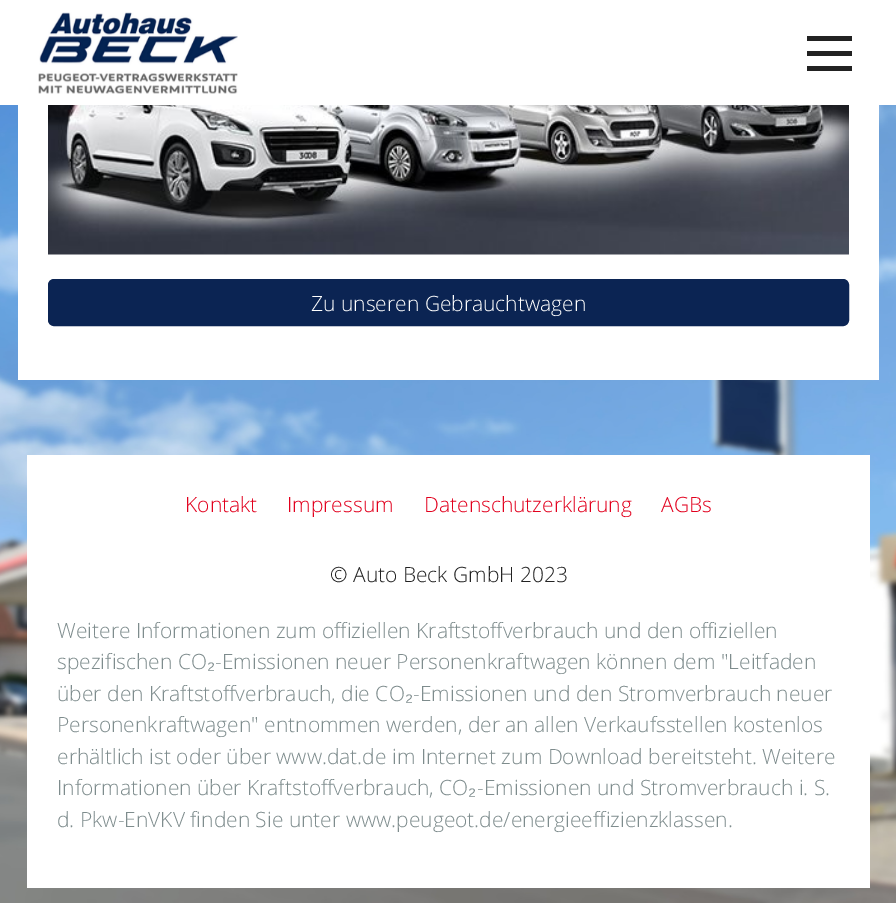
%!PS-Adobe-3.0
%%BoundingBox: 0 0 896 903
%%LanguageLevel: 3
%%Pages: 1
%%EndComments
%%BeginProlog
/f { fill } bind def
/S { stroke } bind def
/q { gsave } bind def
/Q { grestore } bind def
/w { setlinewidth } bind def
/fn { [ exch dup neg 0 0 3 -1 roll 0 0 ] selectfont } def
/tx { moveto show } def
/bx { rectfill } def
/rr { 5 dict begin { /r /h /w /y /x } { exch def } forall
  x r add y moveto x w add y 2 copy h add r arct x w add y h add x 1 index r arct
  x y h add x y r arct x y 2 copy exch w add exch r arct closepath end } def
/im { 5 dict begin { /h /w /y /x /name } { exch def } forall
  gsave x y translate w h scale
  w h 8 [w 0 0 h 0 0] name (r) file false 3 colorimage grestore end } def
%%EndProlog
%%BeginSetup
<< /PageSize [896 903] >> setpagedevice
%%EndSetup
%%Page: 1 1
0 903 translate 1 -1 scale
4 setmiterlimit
1 setgray
0 0 896 903 bx
(image0.raw) 0 105 896 798 im
(image1.raw) 38 12 200 82 im
0.133 setgray
807 51 45 5 bx
807 36 45 5 bx
807 66 45 5 bx
1 setgray
18 105 861 275 bx
(image2.raw) 48 105 801 150 im
0.043 0.141 0.325 setrgbcolor
49 280 799 45 5 rr q f Q
2 w
S
/OpenSans-Light 21 fn
1 setgray
(Zu unseren Gebrauchtwagen) 311 311 tx
27 455 843 433 bx
0.886 0 0.114 setrgbcolor
(Kontakt) 185 512 tx
(Impressum) 287 512 tx
(Datenschutzerklärung) 424 512 tx
(AGBs) 661 512 tx
0.133 setgray
(© Auto Beck GmbH 2023) 330 582 tx
0.494 0.549 0.553 setrgbcolor
(Weitere Informationen zum offiziellen Kraftstoffverbrauch und den offiziellen) 57 638 tx
(spezifischen CO) 57 669 tx
/LiberationSans-Regular 21 fn
(₂) 207 669 tx
/OpenSans-Light 21 fn
(-Emissionen neuer Personenkraftwagen können dem "Leitfaden) 215 669 tx
(über den Kraftstoffverbrauch, die CO) 57 701 tx
/LiberationSans-Regular 21 fn
(₂) 405 701 tx
/OpenSans-Light 21 fn
(-Emissionen und den Stromverbrauch neuer) 413 701 tx
(Personenkraftwagen" entnommen werden, der an allen Verkaufsstellen kostenlos) 57 732 tx
(erhältlich ist oder über www.dat.de im Internet zum Download bereitsteht. Weitere) 57 764 tx
(Informationen über Kraftstoffverbrauch, CO) 57 795 tx
/LiberationSans-Regular 21 fn
(₂) 468 795 tx
/OpenSans-Light 21 fn
(-Emissionen und Stromverbrauch i. S.) 477 795 tx
(d. Pkw-EnVKV finden Sie unter www.peugeot.de/energieeffizienzklassen.) 57 827 tx
showpage
%%EOF
